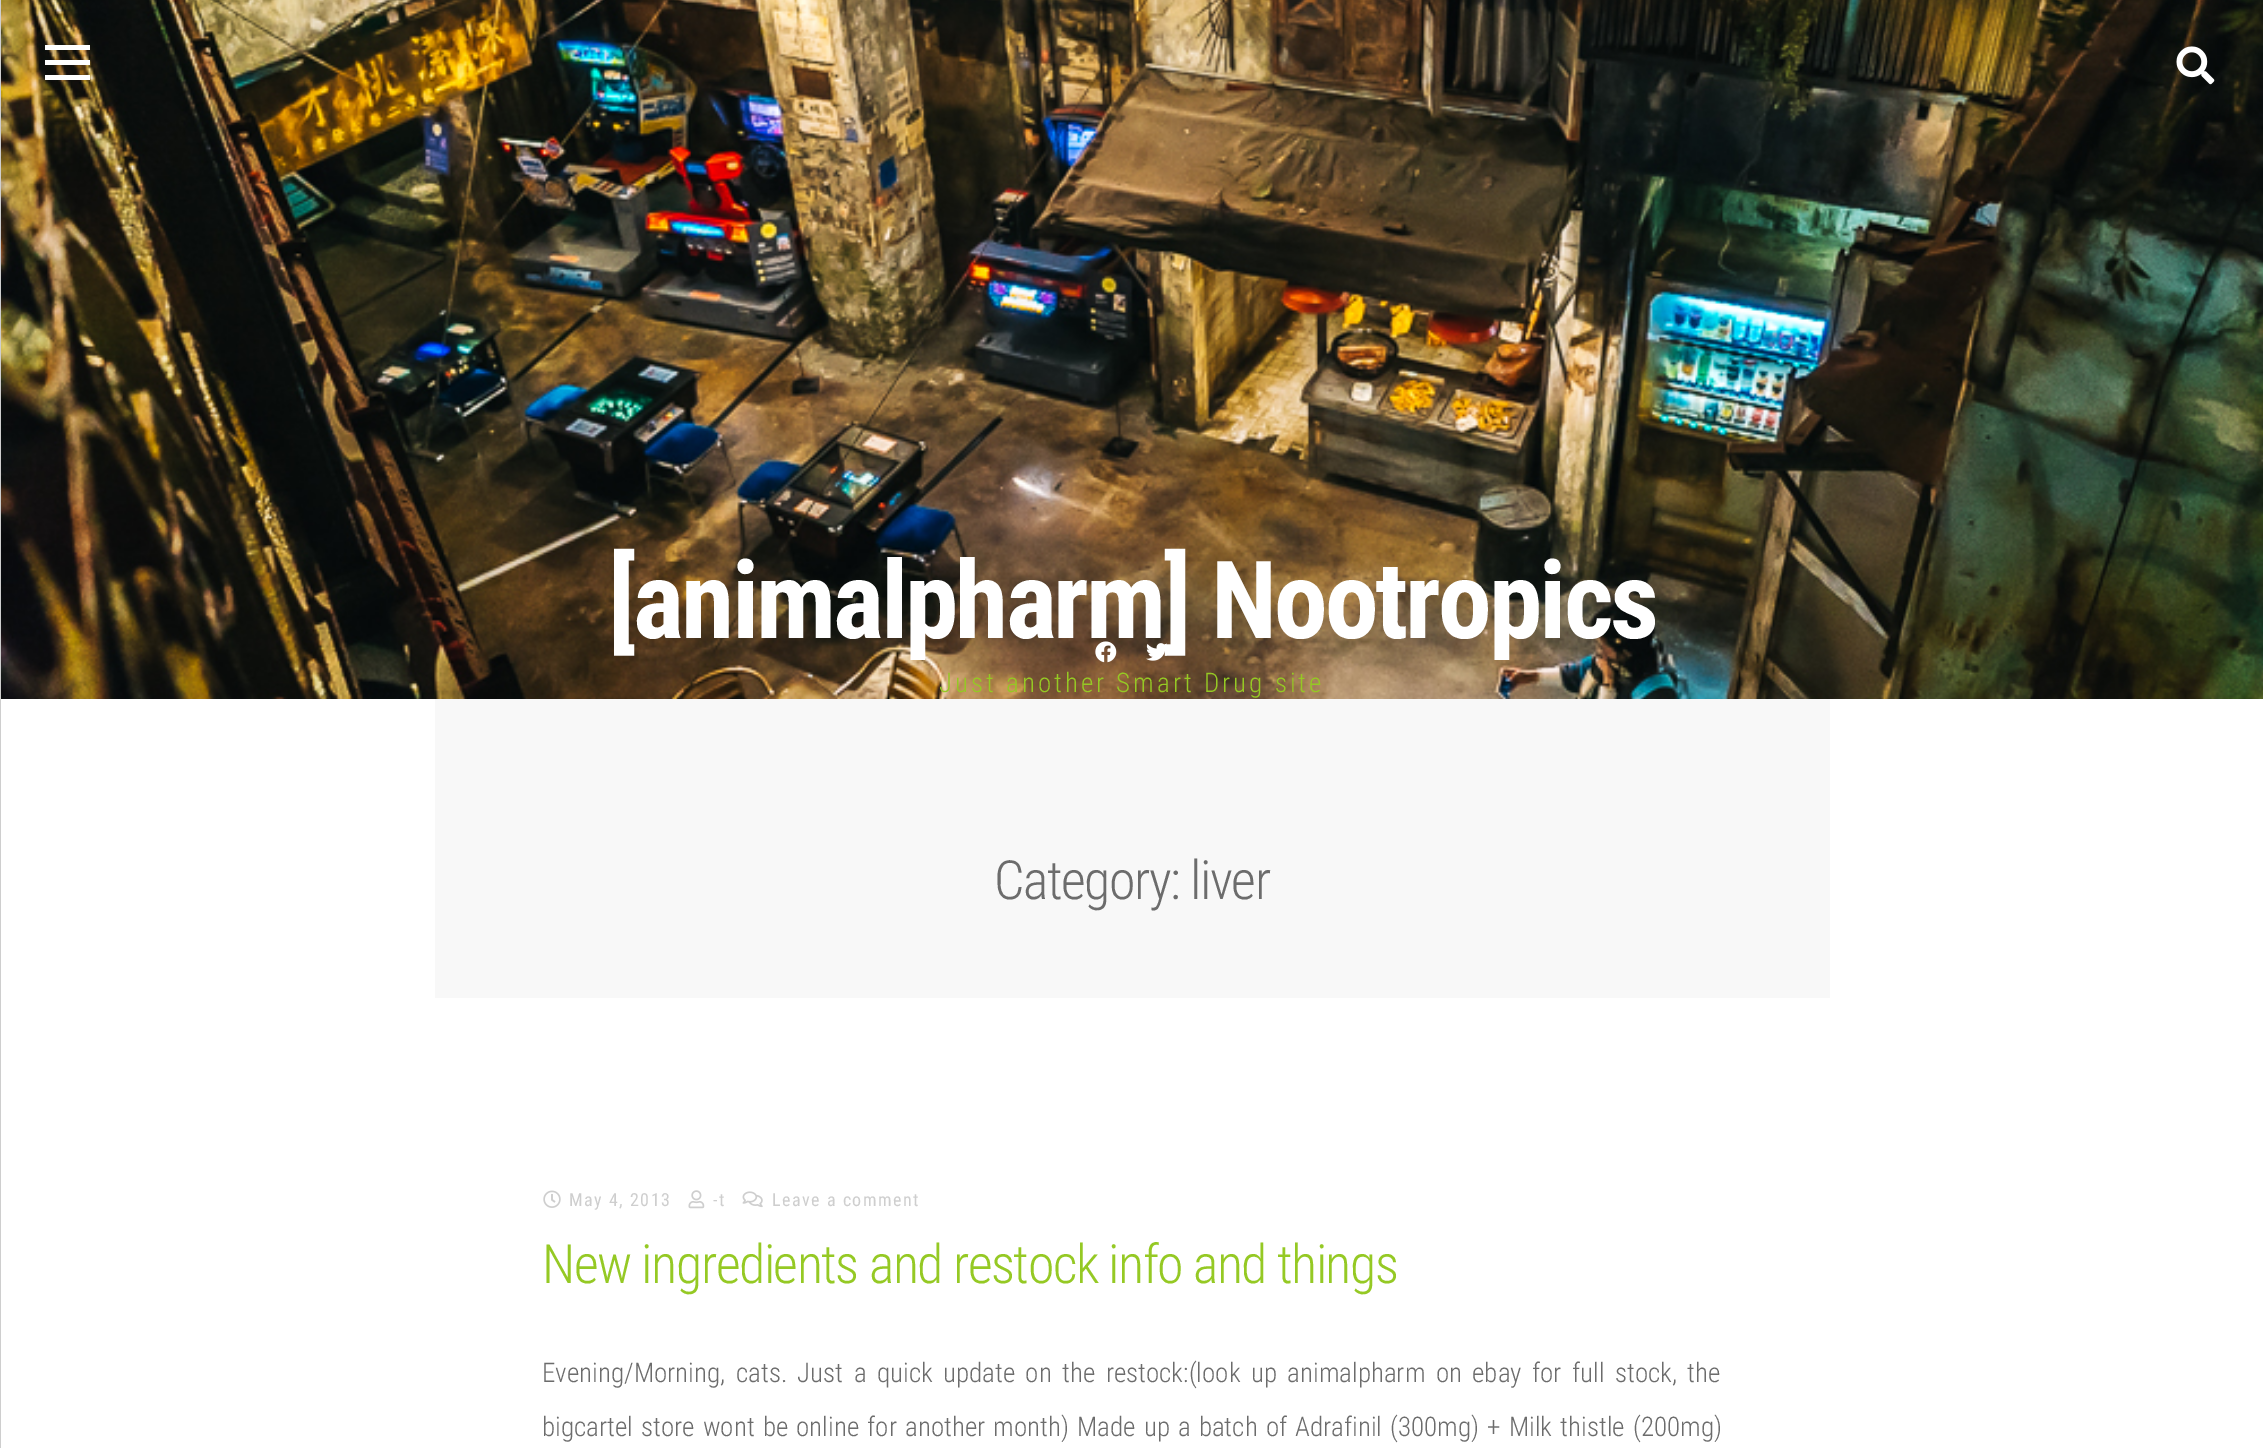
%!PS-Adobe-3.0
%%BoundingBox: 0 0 2263 1448
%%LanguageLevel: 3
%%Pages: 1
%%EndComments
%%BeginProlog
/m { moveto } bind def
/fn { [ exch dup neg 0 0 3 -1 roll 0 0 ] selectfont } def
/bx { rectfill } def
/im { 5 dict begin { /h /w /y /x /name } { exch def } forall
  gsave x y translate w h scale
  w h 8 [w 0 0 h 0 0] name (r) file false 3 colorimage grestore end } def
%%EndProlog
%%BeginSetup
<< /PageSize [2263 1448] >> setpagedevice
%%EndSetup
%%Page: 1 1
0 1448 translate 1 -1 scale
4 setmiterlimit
1 setgray
0 0 2263 1448 bx
(image0.raw) 1 0 2262 699 im
45 45 45 5 bx
45 60 45 5 bx
45 75 45 5 bx
(image1.raw) 2176 46 39 39 im
/RobotoCondensed-Bold 108 fn
608 638 m -3 0 ([animalpharm] Nootropics) ashow
(image2.raw) 1095 641 22 22 im
(image3.raw) 1146 643 21 18 im
/RobotoCondensed-Light 27 fn
0.584 0.788 0.141 setrgbcolor
939 692 m 3 0 (Just another Smart Drug site) ashow
0.808 setgray
0 0 1 1448 bx
0.973 setgray
435 699 1395 299 bx
/RobotoCondensed-Light 54 fn
0.424 setgray
994 899 m -1.5 0 (Category: liver) ashow
(image4.raw) 543 1190 18 18 im
/RobotoCondensed-Regular 18 fn
0.808 setgray
569 1206 m 1.5 0 (May 4, 2013) ashow
(image5.raw) 688 1190 17 19 im
713 1206 m 1.5 0 (-t) ashow
(image6.raw) 742 1191 21 17 im
772 1206 m 1.5 0 (Leave a comment) ashow
/RobotoCondensed-Light 54 fn
0.584 0.788 0.141 setrgbcolor
542 1283 m -1.5 0 (New ingredients and restock info and things) ashow
/RobotoCondensed-Light 27 fn
0.424 setgray
542 1382 m 4.25 0 32 (Evening/Morning, cats. Just a quick update on the restock:\(look up animalpharm on ebay for full stock, the) widthshow
542 1436 m 2 0 32 (bigcartel store wont be online for another month\) Made up a batch of Adrafinil \(300mg\) + Milk thistle \(200mg\)) widthshow
showpage
%%EOF
